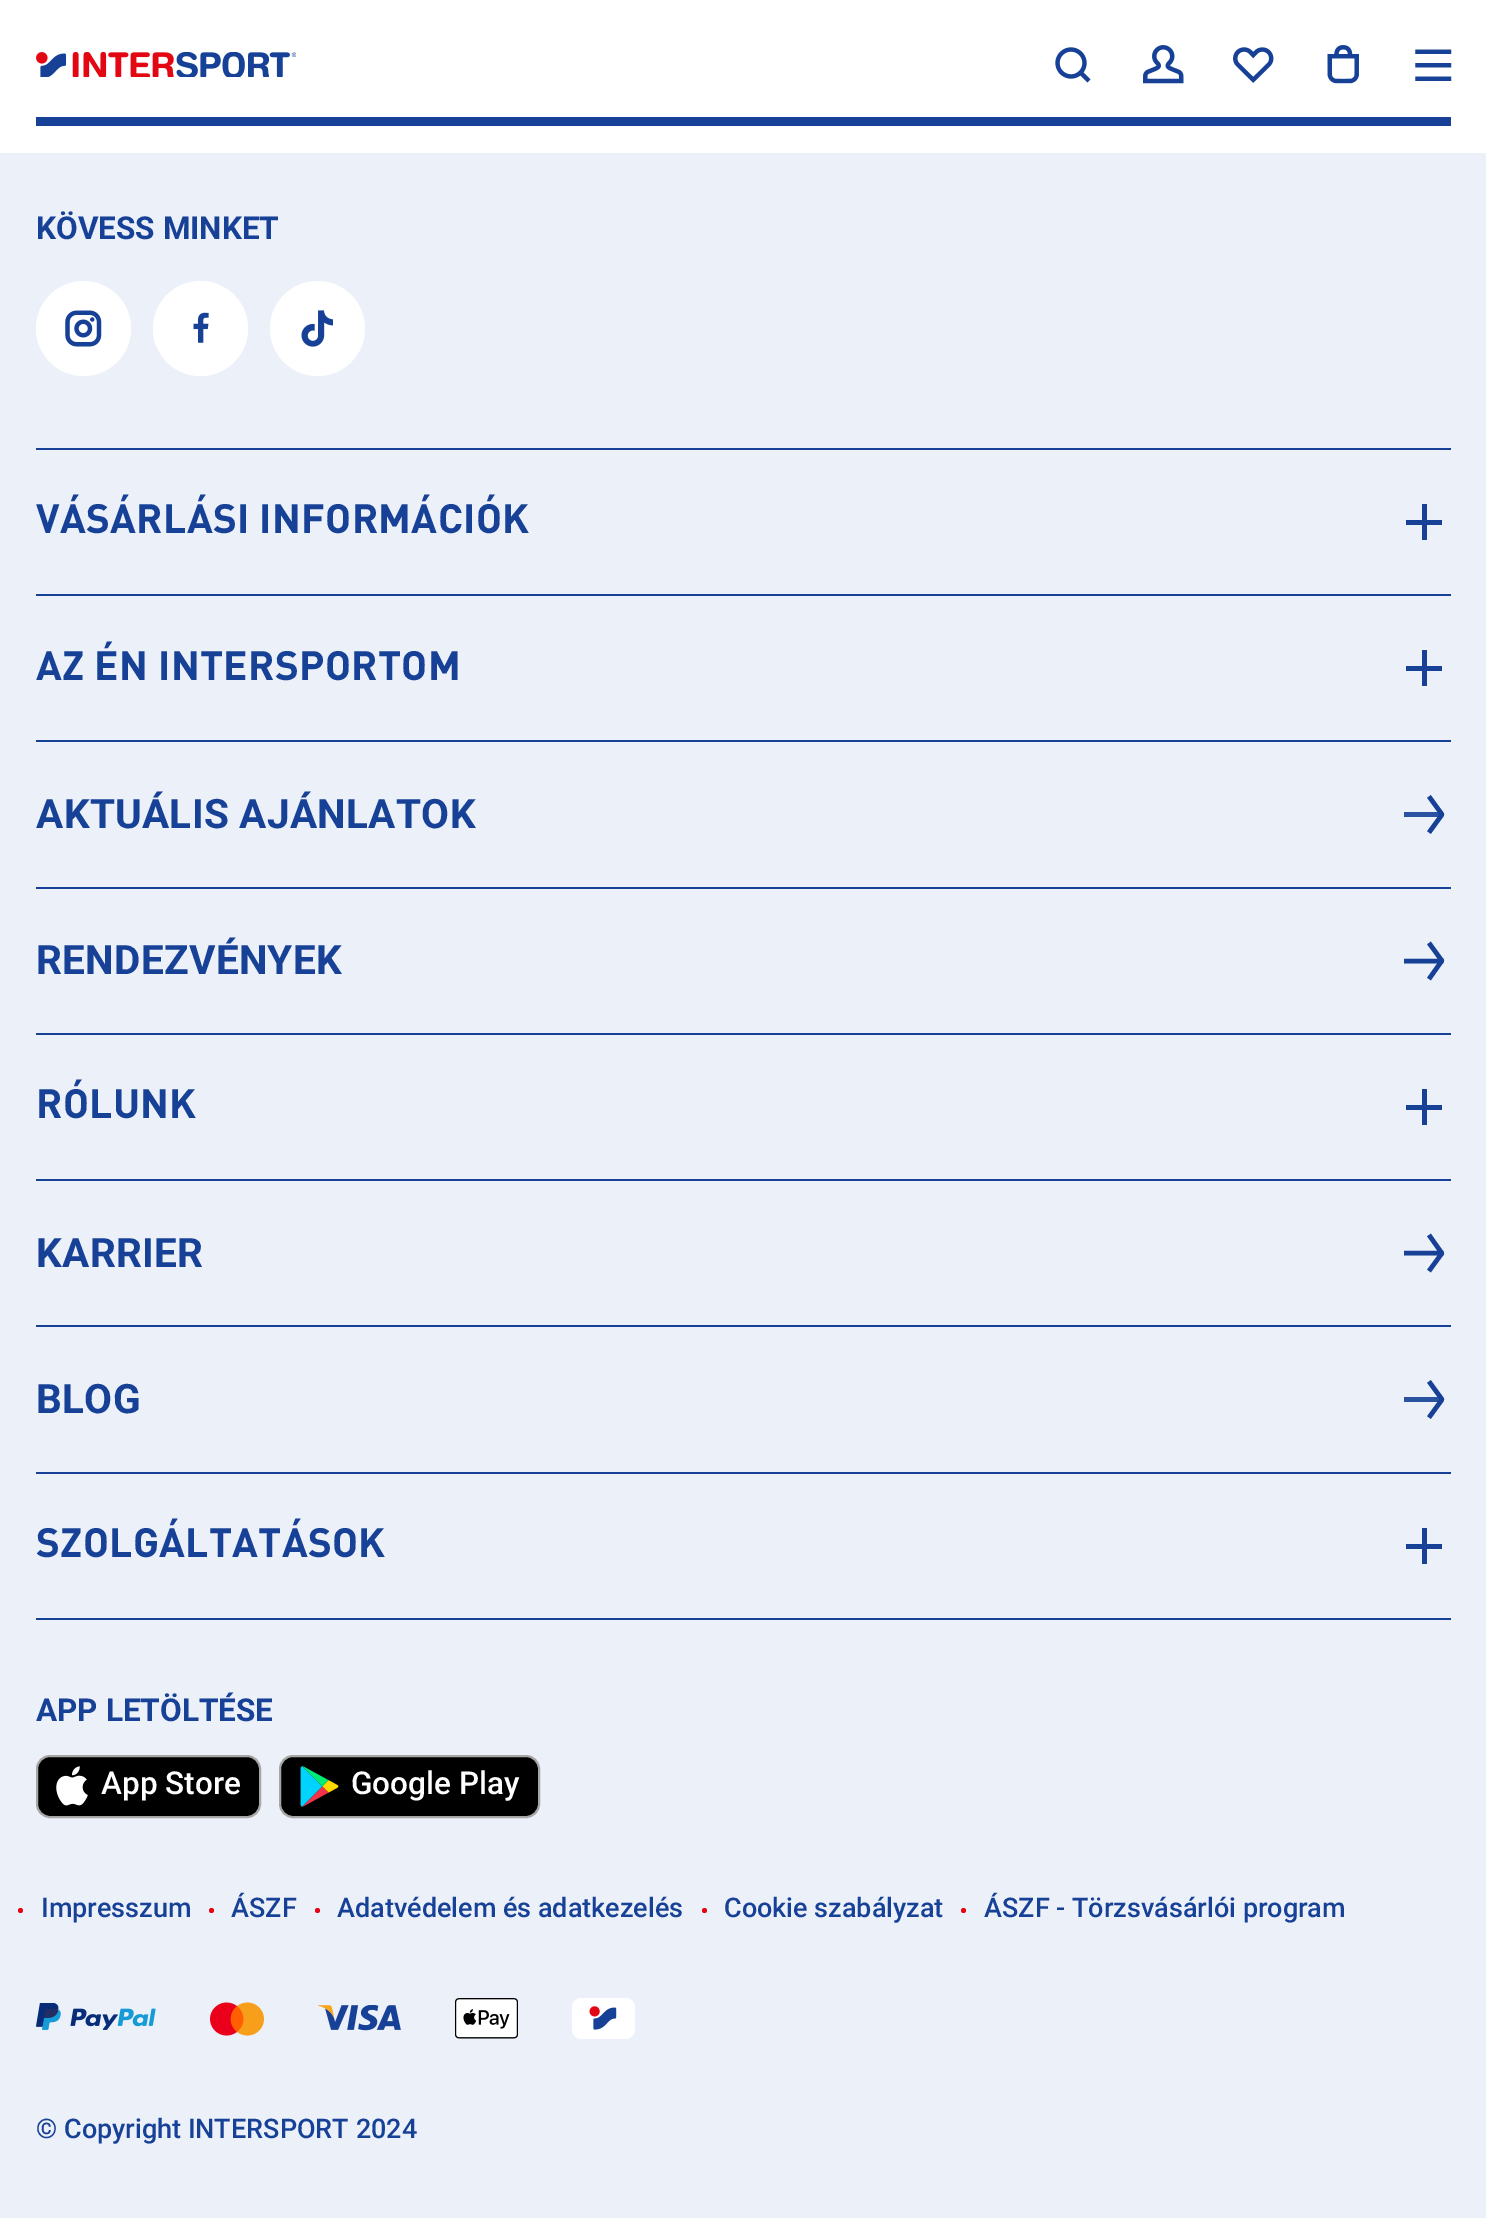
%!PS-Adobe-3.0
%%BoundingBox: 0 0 1486 2218
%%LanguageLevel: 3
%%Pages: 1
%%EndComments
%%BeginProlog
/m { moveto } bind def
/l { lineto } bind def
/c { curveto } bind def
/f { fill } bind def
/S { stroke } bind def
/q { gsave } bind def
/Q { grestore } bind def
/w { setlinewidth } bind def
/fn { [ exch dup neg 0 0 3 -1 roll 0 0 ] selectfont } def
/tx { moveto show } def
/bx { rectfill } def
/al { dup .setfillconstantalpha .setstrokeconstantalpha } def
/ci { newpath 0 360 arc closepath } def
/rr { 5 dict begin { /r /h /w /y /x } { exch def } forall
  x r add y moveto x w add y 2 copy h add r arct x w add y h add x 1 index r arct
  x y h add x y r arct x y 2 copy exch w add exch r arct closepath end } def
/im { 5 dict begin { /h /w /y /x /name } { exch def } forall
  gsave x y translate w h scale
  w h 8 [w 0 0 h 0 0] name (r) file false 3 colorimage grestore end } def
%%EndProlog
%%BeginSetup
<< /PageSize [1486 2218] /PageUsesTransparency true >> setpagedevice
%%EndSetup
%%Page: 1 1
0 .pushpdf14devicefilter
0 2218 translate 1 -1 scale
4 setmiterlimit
0.925 0.941 0.976 setrgbcolor
0 0 1486 2218 bx
1 setgray
0 0 1486 153 bx
0.086 0.255 0.588 setrgbcolor
36 117 1415 9 bx
(image0.raw) 36 52 260 25 im
(image1.raw) 1055 47 36 36 im
(image2.raw) 1143 45 41 39 im
(image3.raw) 1233 47 41 36 im
(image4.raw) 1327 45 32 39 im
(image5.raw) 1415 49 37 32 im
/Roboto-Bold 31.5 fn
(KÖVESS MINKET) 36 239 tx
1 setgray
83.5 328.5 47.5 ci f
(image6.raw) 65 310 37 37 im
200.5 328.5 47.5 ci f
(image7.raw) 193 312 16 31 im
317.5 328.5 47.5 ci f
(image8.raw) 301 310 32 37 im
0.086 0.255 0.588 setrgbcolor
36 1618 1415 2 bx
36 448 1415 2 bx
/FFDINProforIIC-Bold 40.5 fn
36 533 m 0.3 0 (VÁSÁRLÁSI INFORMÁCIÓK) ashow
1406 520 36 5 bx
1422 504 5 36 bx
36 594 1415 2 bx
36 680 m 0.3 0 (AZ ÉN INTERSPORTOM) ashow
1406 666 36 5 bx
1422 650 5 36 bx
36 740 1415 2 bx
/Roboto-Bold 40.5 fn
36 828 m 0.3 0 (AKTUÁLIS AJÁNLATOK) ashow
4.5 w
1429 796.5 m 1441 813 l 1442 814 1442 815 1441 816 c 1429 832.5 l S
0.9 al
1404 812 36 5 bx
1 al
36 887 1415 2 bx
36 974 m 0.3 0 (RENDEZVÉNYEK) ashow
1429 943 m 1441 959.5 l 1442 960 1442 961.5 1441 962 c 1429 979 l 1404 961 m 1440 961 l S
36 1033 1415 2 bx
/FFDINProforIIC-Bold 40.5 fn
36 1118 m 0.3 0 (RÓLUNK) ashow
1406 1105 36 5 bx
1422 1089 5 36 bx
36 1179 1415 2 bx
/Roboto-Bold 40.5 fn
36 1267 m 0.3 0 (KARRIER) ashow
1429 1235 m 1441 1252 l 1442 1252.5 1442 1254 1441 1254.5 c 1429 1271 l 1404 1253 m 1440 1253 l S
36 1325 1415 2 bx
36 1413 m 0.3 0 (BLOG) ashow
1429 1381.5 m 1441 1398 l 1442 1399 1442 1400 1441 1401 c 1429 1417.5 l S
0.9 al
1404 1397 36 5 bx
1 al
36 1472 1415 2 bx
/FFDINProforIIC-Bold 40.5 fn
36 1557 m 0.3 0 (SZOLGÁLTATÁSOK) ashow
1406 1544 36 5 bx
1422 1528 5 36 bx
/Roboto-Bold 31.5 fn
(APP LETÖLTÉSE) 36 1721 tx
0 setgray
37 1756 223 61 13 rr q f Q
0.651 setgray
2 w
S
(image9.raw) 56 1766 32 40 im
/Roboto-Medium 31.5 fn
1 setgray
(App Store) 101 1794 tx
0 setgray
280 1756 259 61 13 rr q f Q
0.651 setgray
S
(image10.raw) 300 1766 39 41 im
1 setgray
(Google Play) 351 1794 tx
0.89 0.024 0.075 setrgbcolor
20.5 1910.5 2.5 ci f
/Roboto-Medium 27 fn
0.086 0.255 0.588 setrgbcolor
(Impresszum) 41 1917 tx
0.89 0.024 0.075 setrgbcolor
211.5 1910.5 2.5 ci f
0.086 0.255 0.588 setrgbcolor
(ÁSZF) 231 1917 tx
0.89 0.024 0.075 setrgbcolor
317.5 1910.5 2.5 ci f
0.086 0.255 0.588 setrgbcolor
(Adatvédelem és adatkezelés) 337 1917 tx
0.89 0.024 0.075 setrgbcolor
704.5 1910.5 2.5 ci f
0.086 0.255 0.588 setrgbcolor
(Cookie szabályzat) 724 1917 tx
0.89 0.024 0.075 setrgbcolor
963.5 1910.5 2.5 ci f
0.086 0.255 0.588 setrgbcolor
(ÁSZF - Törzsvásárlói program) 984 1917 tx
(image11.raw) 36 2003 120 27 im
(image12.raw) 210 2002 54 34 im
(image13.raw) 318 2005 83 26 im
(image14.raw) 455 1998 63 41 im
(image15.raw) 572 1998 63 41 im
(© Copyright INTERSPORT 2024) 36 2138 tx
.poppdf14devicefilter showpage
%%EOF
